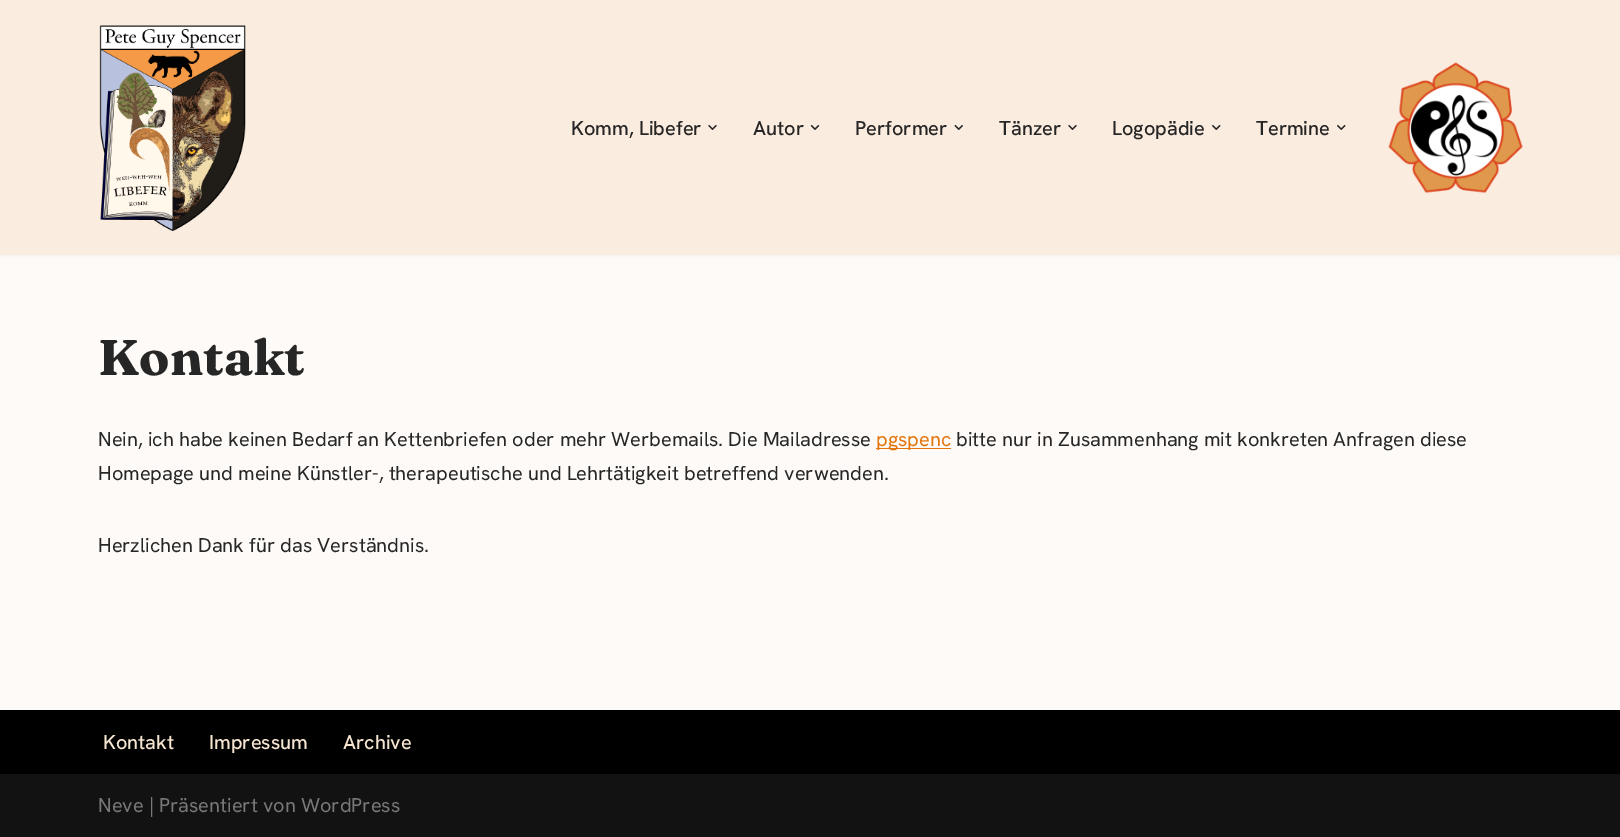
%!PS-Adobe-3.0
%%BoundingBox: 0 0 1620 837
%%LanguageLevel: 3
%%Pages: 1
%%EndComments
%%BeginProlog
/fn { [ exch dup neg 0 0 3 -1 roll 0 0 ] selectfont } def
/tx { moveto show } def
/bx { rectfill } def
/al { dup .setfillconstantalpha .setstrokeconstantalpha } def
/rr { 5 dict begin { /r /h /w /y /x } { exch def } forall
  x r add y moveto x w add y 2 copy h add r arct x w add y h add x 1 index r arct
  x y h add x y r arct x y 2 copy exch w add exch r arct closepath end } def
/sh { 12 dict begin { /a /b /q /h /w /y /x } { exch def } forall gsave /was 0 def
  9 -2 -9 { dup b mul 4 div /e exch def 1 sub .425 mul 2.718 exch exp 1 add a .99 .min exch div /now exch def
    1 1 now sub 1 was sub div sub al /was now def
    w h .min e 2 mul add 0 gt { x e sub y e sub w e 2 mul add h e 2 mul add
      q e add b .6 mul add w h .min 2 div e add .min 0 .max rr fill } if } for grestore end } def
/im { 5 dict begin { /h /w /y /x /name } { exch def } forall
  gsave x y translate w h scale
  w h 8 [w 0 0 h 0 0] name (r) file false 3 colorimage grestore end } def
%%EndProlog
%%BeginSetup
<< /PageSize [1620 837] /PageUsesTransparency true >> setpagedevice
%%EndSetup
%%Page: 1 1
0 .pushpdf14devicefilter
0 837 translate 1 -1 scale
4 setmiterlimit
0.992 0.98 0.969 setrgbcolor
0 0 1620 837 bx
0 setgray
0 -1 1620 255 0 2 0.1 sh
0.98 0.925 0.871 setrgbcolor
0 0 1620 255 bx
(image0.raw) 99 25 147 206 im
/HankenGrotesk-Medium 20 fn
0.153 0.149 0.149 setrgbcolor
(Komm, Libefer) 571 135 tx
(image1.raw) 708 125 9 5 im
(Autor) 753 135 tx
(image2.raw) 810 125 10 5 im
(Performer) 855 135 tx
(image3.raw) 954 125 9 5 im
(Tänzer) 999 135 tx
(image1.raw) 1068 125 9 5 im
(Logopädie) 1112 135 tx
(image4.raw) 1212 125 9 5 im
(Termine) 1256 135 tx
(image4.raw) 1337 125 9 5 im
(image5.raw) 1388 62 135 131 im
/Fraunces-Bold 50 fn
(Kontakt) 98 375 tx
/HankenGrotesk-Regular 20 fn
(Nein, ich habe keinen Bedarf an Kettenbriefen oder mehr Werbemails. Die Mailadresse) 98 446 tx
0.894 0.455 0.047 setrgbcolor
876 448 75 1 bx
(pgspenc) 876 446 tx
0.153 0.149 0.149 setrgbcolor
(bitte nur in Zusammenhang mit konkreten Anfragen diese) 956 446 tx
(Homepage und meine Künstler-, therapeutische und Lehrtätigkeit betreffend verwenden.) 98 480 tx
(Herzlichen Dank für das Verständnis.) 98 552 tx
0 setgray
0 710 1620 64 bx
/HankenGrotesk-Medium 20 fn
0.957 0.894 0.816 setrgbcolor
(Kontakt) 103 749 tx
(Impressum) 209 749 tx
(Archive) 343 749 tx
0.071 setgray
0 774 1620 63 bx
/HankenGrotesk-Regular 20 fn
0.471 setgray
(Neve | Präsentiert von WordPress) 98 812 tx
.poppdf14devicefilter showpage
%%EOF
